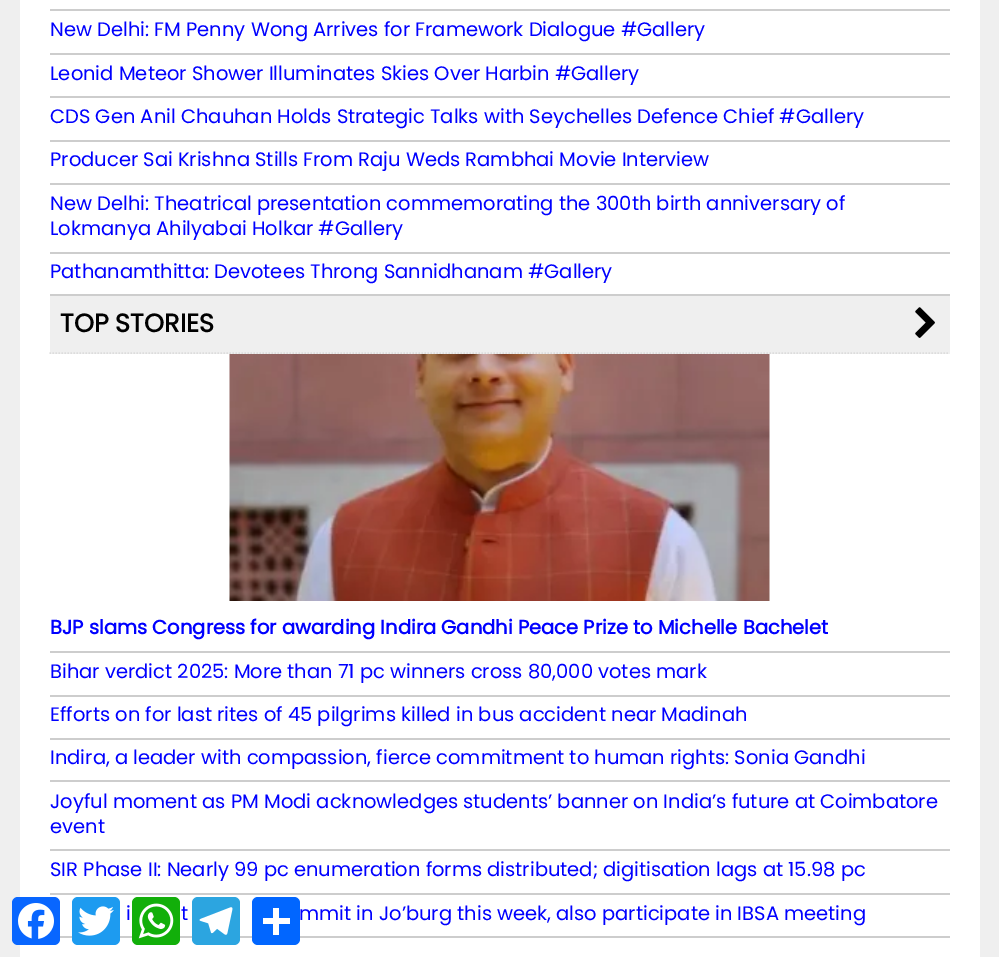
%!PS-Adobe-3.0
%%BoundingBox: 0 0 999 957
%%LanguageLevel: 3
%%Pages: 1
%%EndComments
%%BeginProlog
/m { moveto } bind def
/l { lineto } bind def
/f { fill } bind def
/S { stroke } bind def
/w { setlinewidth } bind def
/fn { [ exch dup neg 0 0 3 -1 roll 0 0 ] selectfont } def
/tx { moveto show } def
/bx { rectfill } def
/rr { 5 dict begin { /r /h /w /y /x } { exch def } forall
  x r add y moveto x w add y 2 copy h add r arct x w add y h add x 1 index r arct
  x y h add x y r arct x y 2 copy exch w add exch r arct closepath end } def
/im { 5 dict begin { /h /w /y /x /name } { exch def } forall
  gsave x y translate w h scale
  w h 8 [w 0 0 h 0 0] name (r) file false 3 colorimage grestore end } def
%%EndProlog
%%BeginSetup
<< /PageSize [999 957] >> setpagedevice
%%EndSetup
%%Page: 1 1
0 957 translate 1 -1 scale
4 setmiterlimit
0.937 setgray
0 0 999 957 bx
1 setgray
20 0 960 957 bx
0.804 setgray
50 9 900 2 bx
/Poppins-Regular 19.5 fn
0 0 1 setrgbcolor
(New Delhi: FM Penny Wong Arrives for Framework Dialogue #Gallery) 50 36 tx
0.804 setgray
50 53 900 2 bx
0 0 1 setrgbcolor
(Leonid Meteor Shower Illuminates Skies Over Harbin #Gallery) 50 80 tx
0.804 setgray
50 96 900 2 bx
0 0 1 setrgbcolor
(CDS Gen Anil Chauhan Holds Strategic Talks with Seychelles Defence Chief #Gallery) 50 123 tx
0.804 setgray
50 140 900 2 bx
0 0 1 setrgbcolor
(Producer Sai Krishna Stills From Raju Weds Rambhai Movie Interview) 50 166 tx
0.804 setgray
50 183 900 2 bx
0 0 1 setrgbcolor
(New Delhi: Theatrical presentation commemorating the 300th birth anniversary of) 50 210 tx
(Lokmanya Ahilyabai Holkar #Gallery) 50 235 tx
0.804 setgray
50 252 900 2 bx
0 0 1 setrgbcolor
(Pathanamthitta: Devotees Throng Sannidhanam #Gallery) 50 278 tx
0.804 setgray
50 294 900 2 bx
0.937 setgray
50 296 900 58 bx
0.863 setgray
1.5 w
[1.5 1.5] 0 setdash
49.5 353 m 949.5 353 l S
/Poppins-Bold 25.5 fn
0 setgray
(TOP STORIES) 60 332 tx
(image0.raw) 915 307 20 31 im
(image1.raw) 229 354 541 247 im
/Poppins-Bold 19.5 fn
0 0 1 setrgbcolor
(BJP slams Congress for awarding Indira Gandhi Peace Prize to Michelle Bachelet) 50 634 tx
0.804 setgray
50 651 900 2 bx
/Poppins-Regular 19.5 fn
0 0 1 setrgbcolor
(Bihar verdict 2025: More than 71 pc winners cross 80,000 votes mark) 50 678 tx
0.804 setgray
50 695 900 2 bx
0 0 1 setrgbcolor
(Efforts on for last rites of 45 pilgrims killed in bus accident near Madinah) 50 721 tx
0.804 setgray
50 738 900 2 bx
0 0 1 setrgbcolor
(Indira, a leader with compassion, fierce commitment to human rights: Sonia Gandhi) 50 764 tx
0.804 setgray
50 780 900 2 bx
0 0 1 setrgbcolor
(Joyful moment as PM Modi acknowledges students’ banner on India’s future at Coimbatore) 50 808 tx
(event) 50 833 tx
0.804 setgray
50 849 900 2 bx
0 0 1 setrgbcolor
(SIR Phase II: Nearly 99 pc enumeration forms distributed; digitisation lags at 15.98 pc) 50 876 tx
0.804 setgray
50 893 900 2 bx
0 0 1 setrgbcolor
(i) 126 920 tx
(t) 181 920 tx
(mmit in Jo’burg this week, also participate in IBSA meeting) 299 920 tx
0.804 setgray
60 936 890 2 bx
0.031 0.4 1 setrgbcolor
12 897 48 48 6 rr f
(image2.raw) 18 903 36 36 im
0.114 0.608 0.941 setrgbcolor
72 897 48 48 6 rr f
(image3.raw) 78 906 36 30 im
0.071 0.686 0.039 setrgbcolor
132 897 48 48 6 rr f
(image4.raw) 138 903 36 36 im
0.173 0.647 0.878 setrgbcolor
192 897 48 48 6 rr f
(image5.raw) 199 907 34 28 im
0.004 0.4 1 setrgbcolor
252 897 48 48 6 rr f
1 setgray
273 908 6 27 bx
263 918 27 6 bx
showpage
%%EOF
